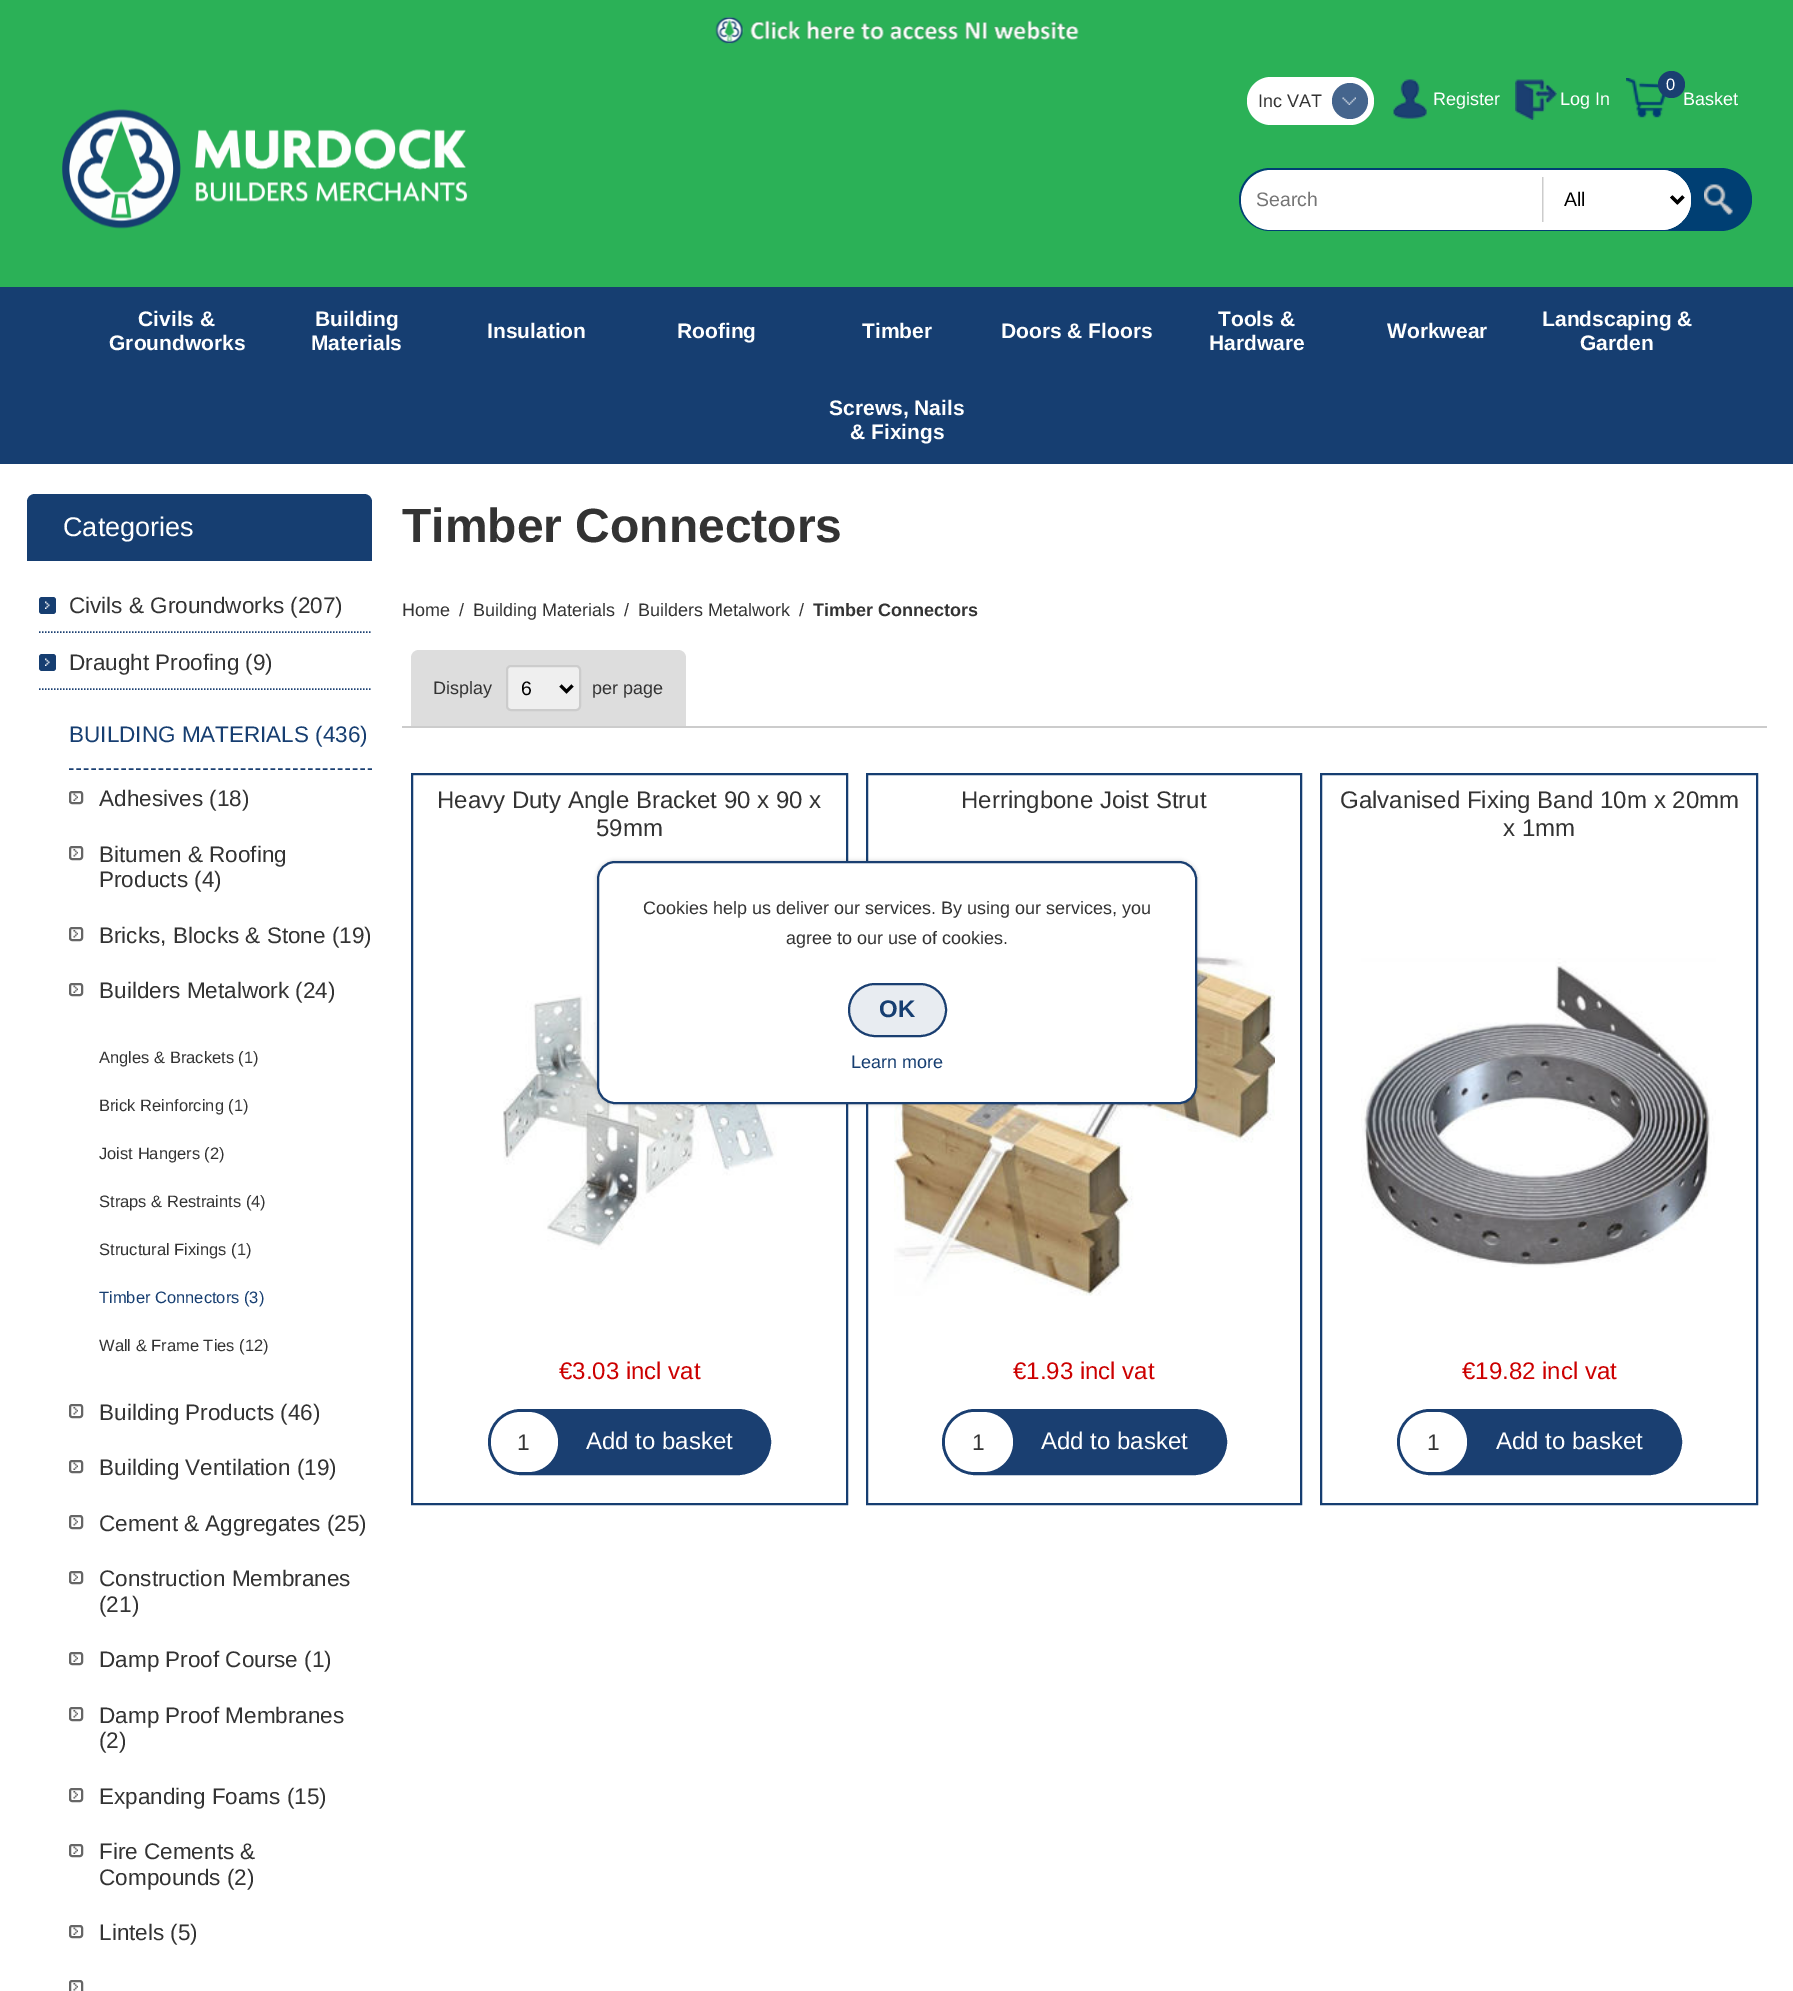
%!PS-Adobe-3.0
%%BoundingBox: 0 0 1793 1991
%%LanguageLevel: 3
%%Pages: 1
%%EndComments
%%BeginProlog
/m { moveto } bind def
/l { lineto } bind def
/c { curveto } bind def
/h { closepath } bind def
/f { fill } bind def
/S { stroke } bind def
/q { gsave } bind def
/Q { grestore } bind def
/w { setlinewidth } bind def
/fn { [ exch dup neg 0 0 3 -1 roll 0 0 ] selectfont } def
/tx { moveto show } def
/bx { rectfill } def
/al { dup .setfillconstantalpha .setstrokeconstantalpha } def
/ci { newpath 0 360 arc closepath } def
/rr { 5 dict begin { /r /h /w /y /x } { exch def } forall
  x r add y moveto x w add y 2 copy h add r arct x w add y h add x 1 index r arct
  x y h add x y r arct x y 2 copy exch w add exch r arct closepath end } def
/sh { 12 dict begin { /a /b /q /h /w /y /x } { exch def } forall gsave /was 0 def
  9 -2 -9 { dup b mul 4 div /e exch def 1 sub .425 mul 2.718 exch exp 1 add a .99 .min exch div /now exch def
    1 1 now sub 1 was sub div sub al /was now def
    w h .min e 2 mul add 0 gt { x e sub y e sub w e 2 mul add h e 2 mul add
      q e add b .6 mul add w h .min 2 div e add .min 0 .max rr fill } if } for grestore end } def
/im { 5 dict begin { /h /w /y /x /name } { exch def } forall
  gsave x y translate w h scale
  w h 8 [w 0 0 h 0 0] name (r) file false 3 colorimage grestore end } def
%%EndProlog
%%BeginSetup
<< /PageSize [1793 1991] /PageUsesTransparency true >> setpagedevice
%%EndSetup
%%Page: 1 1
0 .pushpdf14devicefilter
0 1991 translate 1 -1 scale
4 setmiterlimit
1 setgray
0 0 1793 1991 bx
0.169 0.694 0.341 setrgbcolor
0 0 1793 287 bx
(image0.raw) 715 17 364 27 im
1 setgray
1247 77 127 48 24 rr f
/LiberationSans-Regular 18 fn
0.2 setgray
(Inc VAT) 1258 107 tx
0.271 0.396 0.553 setrgbcolor
1350 101 18 ci f
(image1.raw) 1342 97 14 8 im
(image2.raw) 1393 79 34 40 im
1 setgray
(Register) 1433 105 tx
(image3.raw) 1515 79 42 41 im
(Log In) 1560 105 tx
(image4.raw) 1626 78 40 40 im
(Basket) 1683 105 tx
0.102 0.247 0.443 setrgbcolor
1671.5 84.5 13.5 ci f
/LiberationSans-Regular 16.5 fn
1 setgray
(0) 1666 90 tx
(image5.raw) 62 109 406 120 im
0 0.247 0.451 setrgbcolor
1239 168 513 63 31.5 rr f
1 setgray
1241 170 450 60 30 rr f
/LiberationSans-Regular 19.5 fn
0.459 setgray
(Search) 1256 206 tx
1 setgray
1541 170 m 1661 170 l 1677.5 170 1691 183.5 1691 200 c 1691 216.5 1677.5 230 1661 230 c 1541 230 l h f
(image6.raw) 1542 177 142 45 im
0 setgray
3 w
1671.5 196.5 m 1677.5 202.5 l 1683.5 196.5 l S
(All) 1564 206 tx
(image7.raw) 1704 184 29 31 im
0.086 0.243 0.443 setrgbcolor
0 287 1793 177 bx
/LiberationSans-Bold 21 fn
1 setgray
(Civils &) 138 326 tx
(Groundworks) 109 350 tx
(Building) 315 326 tx
(Materials) 311 350 tx
(Insulation) 487 338 tx
(Roofing) 677 338 tx
(Timber) 862 338 tx
(Doors & Floors) 1001 338 tx
(Tools &) 1218 326 tx
(Hardware) 1209 350 tx
(Workwear) 1387 338 tx
(Landscaping &) 1542 326 tx
(Garden) 1580 350 tx
(Screws, Nails) 829 415 tx
(& Fixings) 850 439 tx
0.086 0.243 0.443 setrgbcolor
35 494 m 364 494 l 368.5 494 372 497.5 372 502 c 372 561 l 27 561 l 27 502 l 27 497.5 30.5 494 35 494 c h f
/LiberationSans-Regular 27 fn
1 setgray
(Categories) 63 536 tx
0.102 0.247 0.443 setrgbcolor
1.5 w
[1.5 1.5] 0 setdash
39 632 m 372 632 l S
0.086 0.243 0.443 setrgbcolor
39 597 17 17 3 rr f
(image8.raw) 45 601 5 8 im
/LiberationSans-Regular 22.5 fn
0.2 setgray
(Civils & Groundworks \(207\)) 69 613 tx
0.102 0.247 0.443 setrgbcolor
39 689 m 372 689 l S
0.086 0.243 0.443 setrgbcolor
39 654 17 17 3 rr f
(image8.raw) 45 658 5 8 im
0.2 setgray
(Draught Proofing \(9\)) 69 670 tx
0.086 0.243 0.443 setrgbcolor
(BUILDING MATERIALS \(436\)) 69 742 tx
0.102 0.247 0.443 setrgbcolor
[4.5 2.97] 0 setdash
69 769 m 372 769 l S
(image9.raw) 73 793 5 8 im
0.4 setgray
2 w
[] 0 setdash
70 792 12 11 2 rr S
0.2 setgray
(Adhesives \(18\)) 99 806 tx
(image10.raw) 73 849 5 8 im
0.4 setgray
70 847 12 12 2 rr S
0.2 setgray
(Bitumen & Roofing) 99 862 tx
(Products \(4\)) 99 887 tx
(image10.raw) 73 930 5 8 im
0.4 setgray
70 928 12 12 2 rr S
0.2 setgray
(Bricks, Blocks & Stone \(19\)) 99 943 tx
(image9.raw) 73 985 5 8 im
0.4 setgray
70 984 12 11 2 rr S
0.2 setgray
(Builders Metalwork \(24\)) 99 998 tx
/LiberationSans-Regular 16.5 fn
(Angles & Brackets \(1\)) 99 1063 tx
(Brick Reinforcing \(1\)) 99 1111 tx
(Joist Hangers \(2\)) 99 1159 tx
(Straps & Restraints \(4\)) 99 1207 tx
(Structural Fixings \(1\)) 99 1255 tx
0.086 0.243 0.443 setrgbcolor
(Timber Connectors \(3\)) 99 1303 tx
0.2 setgray
(Wall & Frame Ties \(12\)) 99 1351 tx
(image10.raw) 73 1407 5 8 im
0.4 setgray
70 1405 12 12 2 rr S
/LiberationSans-Regular 22.5 fn
0.2 setgray
(Building Products \(46\)) 99 1420 tx
(image9.raw) 73 1462 5 8 im
0.4 setgray
70 1461 12 11 2 rr S
0.2 setgray
(Building Ventilation \(19\)) 99 1475 tx
(image10.raw) 73 1518 5 8 im
0.4 setgray
70 1516 12 12 2 rr S
0.2 setgray
(Cement & Aggregates \(25\)) 99 1531 tx
(image9.raw) 73 1573 5 8 im
0.4 setgray
70 1572 12 11 2 rr S
0.2 setgray
(Construction Membranes) 99 1586 tx
(\(21\)) 99 1612 tx
(image9.raw) 73 1654 5 8 im
0.4 setgray
70 1653 12 11 2 rr S
0.2 setgray
(Damp Proof Course \(1\)) 99 1667 tx
(image10.raw) 73 1710 5 8 im
0.4 setgray
70 1708 12 12 2 rr S
0.2 setgray
(Damp Proof Membranes) 99 1723 tx
(\(2\)) 99 1748 tx
(image10.raw) 73 1791 5 8 im
0.4 setgray
70 1789 12 12 2 rr S
0.2 setgray
(Expanding Foams \(15\)) 99 1804 tx
(image9.raw) 73 1846 5 8 im
0.4 setgray
70 1845 12 11 2 rr S
0.2 setgray
(Fire Cements &) 99 1859 tx
(Compounds \(2\)) 99 1885 tx
(image9.raw) 73 1927 5 8 im
0.4 setgray
70 1926 12 11 2 rr S
0.2 setgray
(Lintels \(5\)) 99 1940 tx
(image10.raw) 73 1983 5 8 im
0.4 setgray
70 1981 12 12 2 rr S
/LiberationSans-Bold 48 fn
0.2 setgray
(Timber Connectors) 402 542 tx
/LiberationSans-Regular 18 fn
(Home) 402 616 tx
(/) 459 616 tx
(Building Materials) 473 616 tx
(/) 624 616 tx
(Builders Metalwork) 638 616 tx
(/) 799 616 tx
/LiberationSans-Bold 18 fn
(Timber Connectors) 813 616 tx
0.8 setgray
402 726 1365 2 bx
0.867 setgray
419 650 m 678 650 l 682.5 650 686 653.5 686 658 c 686 726 l 411 726 l 411 658 l 411 653.5 414.5 650 419 650 c h f
/LiberationSans-Regular 18 fn
0.2 setgray
(Display) 433 694 tx
0.937 setgray
507 666 73 44 4 rr q f Q
0.8 setgray
S
0 setgray
3 w
560.5 685.5 m 566.5 691.5 l 572.5 685.5 l S
/LiberationSans-Regular 19.5 fn
(6) 521 695 tx
/LiberationSans-Regular 18 fn
0.2 setgray
(per page) 592 694 tx
0.086 0.243 0.443 setrgbcolor
2 w
412 774 435 730 rectstroke
/LiberationSans-Regular 24 fn
0.2 setgray
(Heavy Duty Angle Bracket 90 x 90 x) 437 808 tx
(59mm) 596 836 tx
(image11.raw) 503 994 274 256 im
0.8 0 0 setrgbcolor
(€3.03 incl vat) 559 1379 tx
0.102 0.247 0.443 setrgbcolor
489.5 1410.5 280 63 31.5 rr q f Q
3 w
S
1 setgray
491 1412 67 60 30 rr f
/LiberationSans-Regular 22.5 fn
0.2 setgray
(1) 517 1450 tx
/LiberationSans-Regular 24 fn
1 setgray
(Add to basket) 586 1449 tx
0.086 0.243 0.443 setrgbcolor
2 w
867 774 434 730 rectstroke
0.2 setgray
(Herringbone Joist Strut) 961 808 tx
(image12.raw) 894 924 381 372 im
0.8 0 0 setrgbcolor
(€1.93 incl vat) 1013 1379 tx
0.102 0.247 0.443 setrgbcolor
943.5 1410.5 282 63 31.5 rr q f Q
3 w
S
1 setgray
945 1412 68 60 30 rr f
/LiberationSans-Regular 22.5 fn
0.2 setgray
(1) 972 1450 tx
/LiberationSans-Regular 24 fn
1 setgray
(Add to basket) 1041 1449 tx
0.086 0.243 0.443 setrgbcolor
2 w
1321 774 436 730 rectstroke
0.2 setgray
(Galvanised Fixing Band 10m x 20mm) 1340 808 tx
(x 1mm) 1503 836 tx
(image13.raw) 1361 958 355 310 im
0.8 0 0 setrgbcolor
(€19.82 incl vat) 1462 1379 tx
0.102 0.247 0.443 setrgbcolor
1398.5 1410.5 282 63 31.5 rr q f Q
3 w
S
1 setgray
1400 1412 67 60 30 rr f
/LiberationSans-Regular 22.5 fn
0.2 setgray
(1) 1427 1450 tx
/LiberationSans-Regular 24 fn
1 setgray
(Add to basket) 1496 1449 tx
0 setgray
597 861 600 243 18 2 0.2 sh
1 setgray
598 862 598 241 17 rr q f Q
0.102 0.247 0.443 setrgbcolor
2 w
S
/LiberationSans-Regular 18 fn
0.2 setgray
(Cookies help us deliver our services. By using our services, you) 643 914 tx
(agree to our use of cookies.) 786 944 tx
0.91 0.925 0.945 setrgbcolor
849 984 97 52 26 rr q f Q
0.102 0.247 0.443 setrgbcolor
S
/LiberationSans-Bold 24 fn
0.086 0.243 0.443 setrgbcolor
(OK) 879 1017 tx
/LiberationSans-Regular 18 fn
(Learn more) 851 1068 tx
.poppdf14devicefilter showpage
%%EOF
